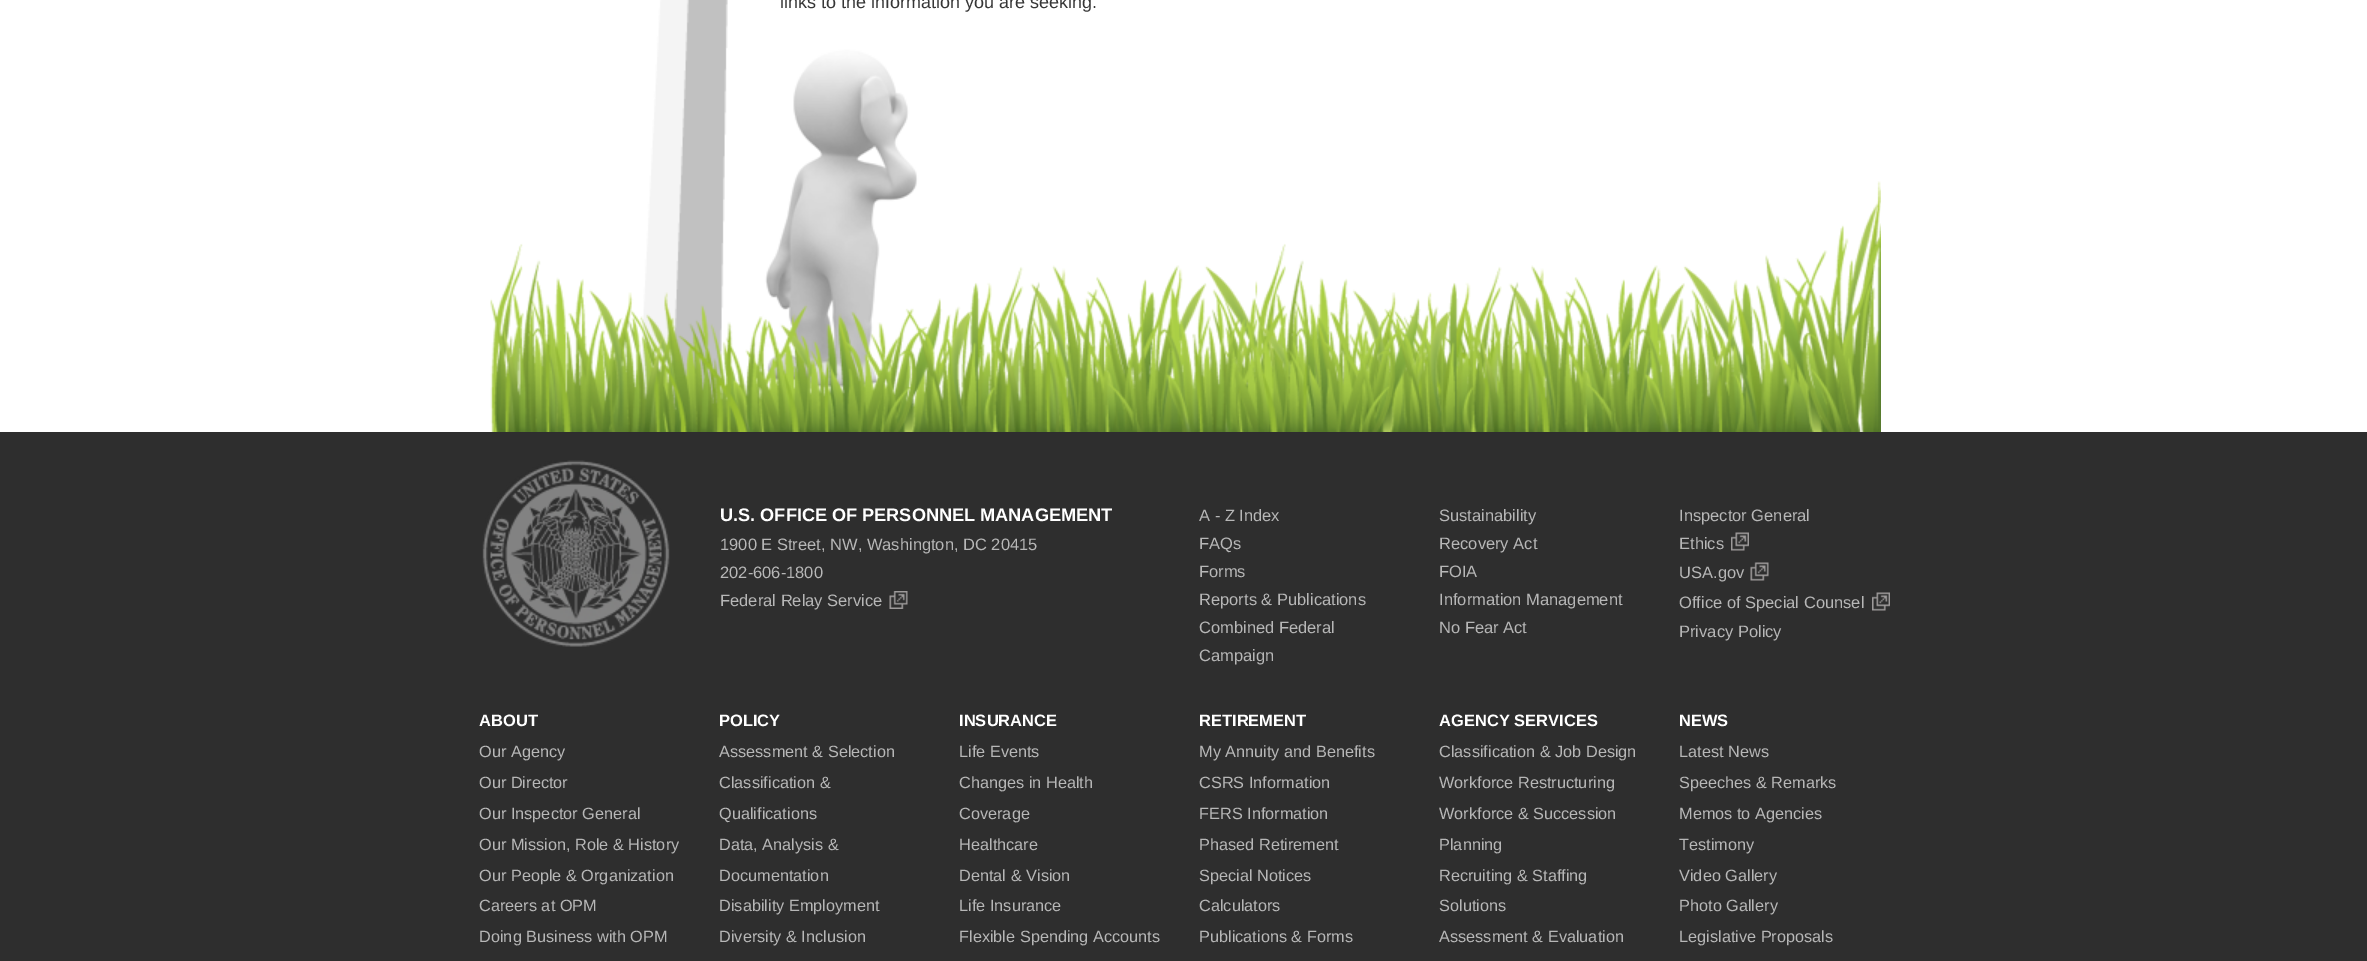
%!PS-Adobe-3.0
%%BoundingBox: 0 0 2367 961
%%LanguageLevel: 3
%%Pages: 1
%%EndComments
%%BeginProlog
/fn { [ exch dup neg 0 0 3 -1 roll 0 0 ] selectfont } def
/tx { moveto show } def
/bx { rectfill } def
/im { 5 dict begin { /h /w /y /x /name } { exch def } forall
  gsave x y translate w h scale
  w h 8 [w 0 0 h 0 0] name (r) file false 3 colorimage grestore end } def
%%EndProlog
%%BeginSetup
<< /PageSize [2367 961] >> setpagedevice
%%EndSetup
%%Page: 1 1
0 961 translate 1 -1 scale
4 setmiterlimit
0.18 setgray
0 0 2367 961 bx
1 setgray
0 0 2367 432 bx
(image0.raw) 490 0 1391 432 im
/LiberationSans-Regular 18 fn
0.212 setgray
(links to the information you are seeking.) 780 8 tx
(image1.raw) 482 460 188 187 im
/LiberationSans-Bold 18.15 fn
1 setgray
(U.S. OFFICE OF PERSONNEL MANAGEMENT) 720 521 tx
/LiberationSans-Regular 16.5 fn
0.718 setgray
(1900 E Street, NW, Washington, DC 20415) 720 550 tx
(202-606-1800) 720 578 tx
(Federal Relay Service) 720 606 tx
(image2.raw) 889 591 19 18 im
(A - Z Index) 1199 521 tx
(FAQs) 1199 549 tx
(Forms) 1199 577 tx
(Reports & Publications) 1199 605 tx
(Combined Federal) 1199 633 tx
(Campaign) 1199 661 tx
(Sustainability) 1439 521 tx
(Recovery Act) 1439 549 tx
(FOIA) 1439 577 tx
(Information Management) 1439 605 tx
(No Fear Act) 1439 633 tx
(Inspector General) 1679 521 tx
(Ethics) 1679 549 tx
(image3.raw) 1731 532 18 19 im
(USA.gov) 1679 578 tx
(image4.raw) 1750 562 19 19 im
(Office of Special Counsel) 1679 608 tx
(image5.raw) 1872 592 18 19 im
(Privacy Policy) 1679 637 tx
/LiberationSans-Bold 16.5 fn
1 setgray
(ABOUT) 479 726 tx
/LiberationSans-Regular 16.3 fn
0.718 setgray
(Our Agency) 479 757 tx
(Our Director) 479 788 tx
(Our Inspector General) 479 819 tx
(Our Mission, Role & History) 479 850 tx
(Our People & Organization) 479 881 tx
(Careers at OPM) 479 911 tx
(Doing Business with OPM) 479 942 tx
/LiberationSans-Bold 16.5 fn
1 setgray
(POLICY) 719 726 tx
/LiberationSans-Regular 16.3 fn
0.718 setgray
(Assessment & Selection) 719 757 tx
(Classification &) 719 788 tx
(Qualifications) 719 819 tx
(Data, Analysis &) 719 850 tx
(Documentation) 719 881 tx
(Disability Employment) 719 911 tx
(Diversity & Inclusion) 719 942 tx
/LiberationSans-Bold 16.5 fn
1 setgray
(INSURANCE) 959 726 tx
/LiberationSans-Regular 16.3 fn
0.718 setgray
(Life Events) 959 757 tx
(Changes in Health) 959 788 tx
(Coverage) 959 819 tx
(Healthcare) 959 850 tx
(Dental & Vision) 959 881 tx
(Life Insurance) 959 911 tx
(Flexible Spending Accounts) 959 942 tx
/LiberationSans-Bold 16.5 fn
1 setgray
(RETIREMENT) 1199 726 tx
/LiberationSans-Regular 16.3 fn
0.718 setgray
(My Annuity and Benefits) 1199 757 tx
(CSRS Information) 1199 788 tx
(FERS Information) 1199 819 tx
(Phased Retirement) 1199 850 tx
(Special Notices) 1199 881 tx
(Calculators) 1199 911 tx
(Publications & Forms) 1199 942 tx
/LiberationSans-Bold 16.5 fn
1 setgray
(AGENCY SERVICES) 1439 726 tx
/LiberationSans-Regular 16.3 fn
0.718 setgray
(Classification & Job Design) 1439 757 tx
(Workforce Restructuring) 1439 788 tx
(Workforce & Succession) 1439 819 tx
(Planning) 1439 850 tx
(Recruiting & Staffing) 1439 881 tx
(Solutions) 1439 911 tx
(Assessment & Evaluation) 1439 942 tx
/LiberationSans-Bold 16.5 fn
1 setgray
(NEWS) 1679 726 tx
/LiberationSans-Regular 16.3 fn
0.718 setgray
(Latest News) 1679 757 tx
(Speeches & Remarks) 1679 788 tx
(Memos to Agencies) 1679 819 tx
(Testimony) 1679 850 tx
(Video Gallery) 1679 881 tx
(Photo Gallery) 1679 911 tx
(Legislative Proposals) 1679 942 tx
showpage
%%EOF
